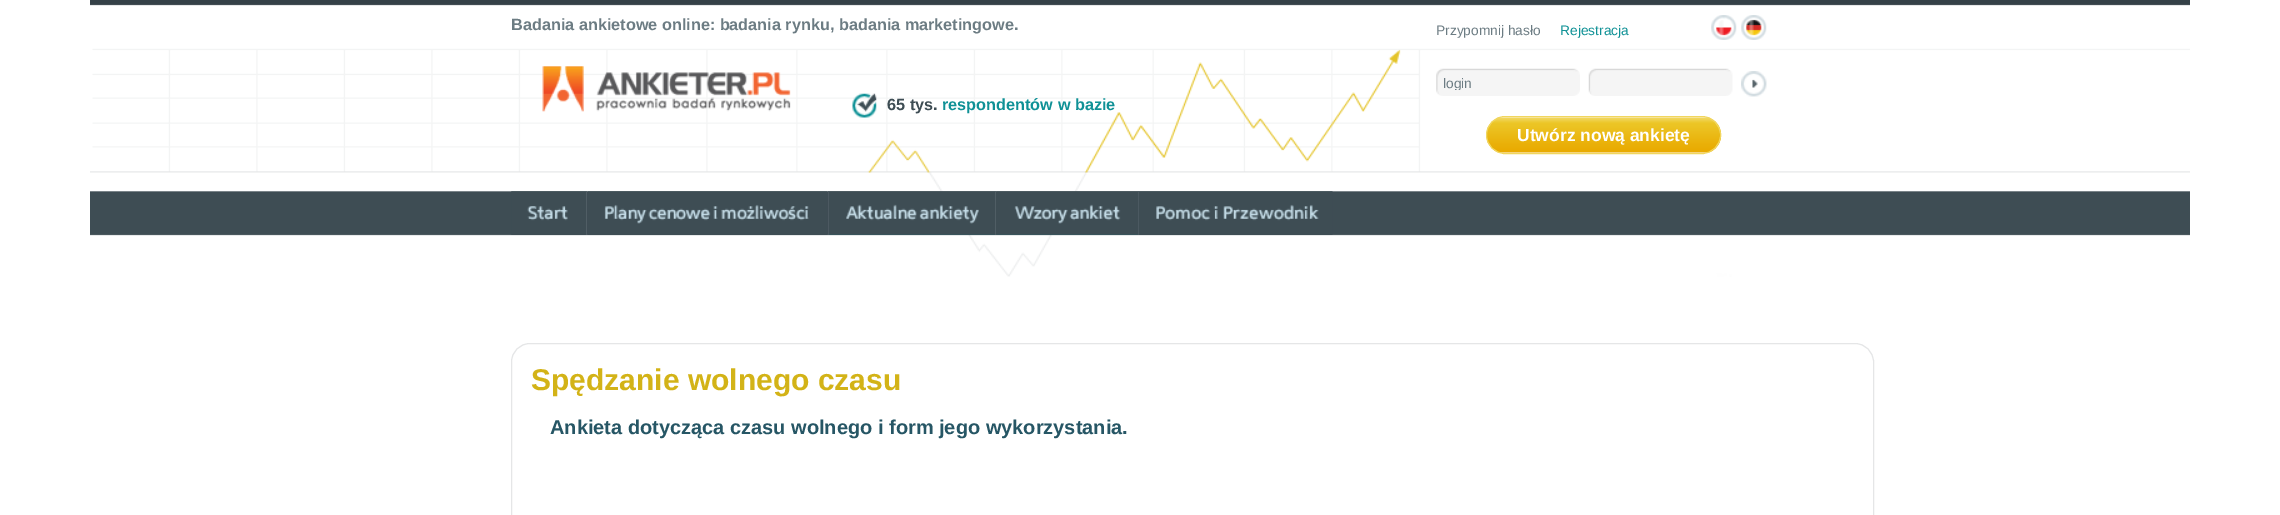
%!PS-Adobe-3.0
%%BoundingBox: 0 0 2280 515
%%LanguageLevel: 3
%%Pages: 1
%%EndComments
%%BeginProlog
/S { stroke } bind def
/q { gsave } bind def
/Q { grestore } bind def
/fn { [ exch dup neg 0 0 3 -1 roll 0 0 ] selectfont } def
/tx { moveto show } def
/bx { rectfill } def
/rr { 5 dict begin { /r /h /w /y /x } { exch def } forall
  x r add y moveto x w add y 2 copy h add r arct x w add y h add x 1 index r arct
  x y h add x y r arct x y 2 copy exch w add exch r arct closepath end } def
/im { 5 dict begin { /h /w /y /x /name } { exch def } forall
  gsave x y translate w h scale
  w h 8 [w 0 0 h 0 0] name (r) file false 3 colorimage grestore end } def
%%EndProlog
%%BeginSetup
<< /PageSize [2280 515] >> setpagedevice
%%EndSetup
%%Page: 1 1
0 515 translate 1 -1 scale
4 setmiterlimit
1 setgray
0 0 2280 515 bx
(image0.raw) 90 0 2100 277 im
/LiberationSans-Bold 16.25 fn
0.424 0.486 0.514 setrgbcolor
(Badania ankietowe online: badania rynku, badania marketingowe.) 511 30 tx
(image1.raw) 542 66 249 46 im
(image2.raw) 852 93 25 25 im
0.243 0.302 0.329 setrgbcolor
(65 tys.) 887 110 tx
0.059 0.569 0.588 setrgbcolor
(respondentów w bazie) 942 110 tx
/LiberationSans-Regular 13.75 fn
0.424 0.486 0.514 setrgbcolor
(Przypomnij hasło) 1436 35 tx
0.059 0.569 0.588 setrgbcolor
(Rejestracja) 1560 35 tx
(image3.raw) 1711 15 26 25 im
(image4.raw) 1741 15 26 25 im
(image5.raw) 1436 68 144 28 im
q
1443 75 131 15 rectclip
0.424 0.486 0.514 setrgbcolor
(login) 1443 88 tx
Q
(image6.raw) 1588 68 145 28 im
(image7.raw) 1741 71 26 26 im
(image8.raw) 1741 71 26 26 im
(image9.raw) 1486 117 236 36 im
0.945 0.839 0.369 setrgbcolor
1486.5 116.5 234 37 18.5 rr S
/LiberationSans-Bold 17.5 fn
1 setgray
(Utwórz nową ankietę) 1517 141 tx
(image10.raw) 511 191 75 44 im
0.314 0.369 0.396 setrgbcolor
586 191 1 44 bx
(image11.raw) 587 191 241 44 im
828 191 1 44 bx
(image12.raw) 828 191 169 44 im
995 191 1 44 bx
(image13.raw) 996 191 142 44 im
1138 191 1 44 bx
(image14.raw) 1138 191 195 44 im
0.898 0.902 0.906 setrgbcolor
511.5 343.5 1362 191 18.5 rr S
/LiberationSans-Bold 30 fn
0.827 0.702 0.09 setrgbcolor
(Spędzanie wolnego czasu) 531 390 tx
/LiberationSans-Bold 20 fn
0.149 0.337 0.396 setrgbcolor
(Ankieta dotycząca czasu wolnego i form jego wykorzystania.) 550 434 tx
showpage
%%EOF
